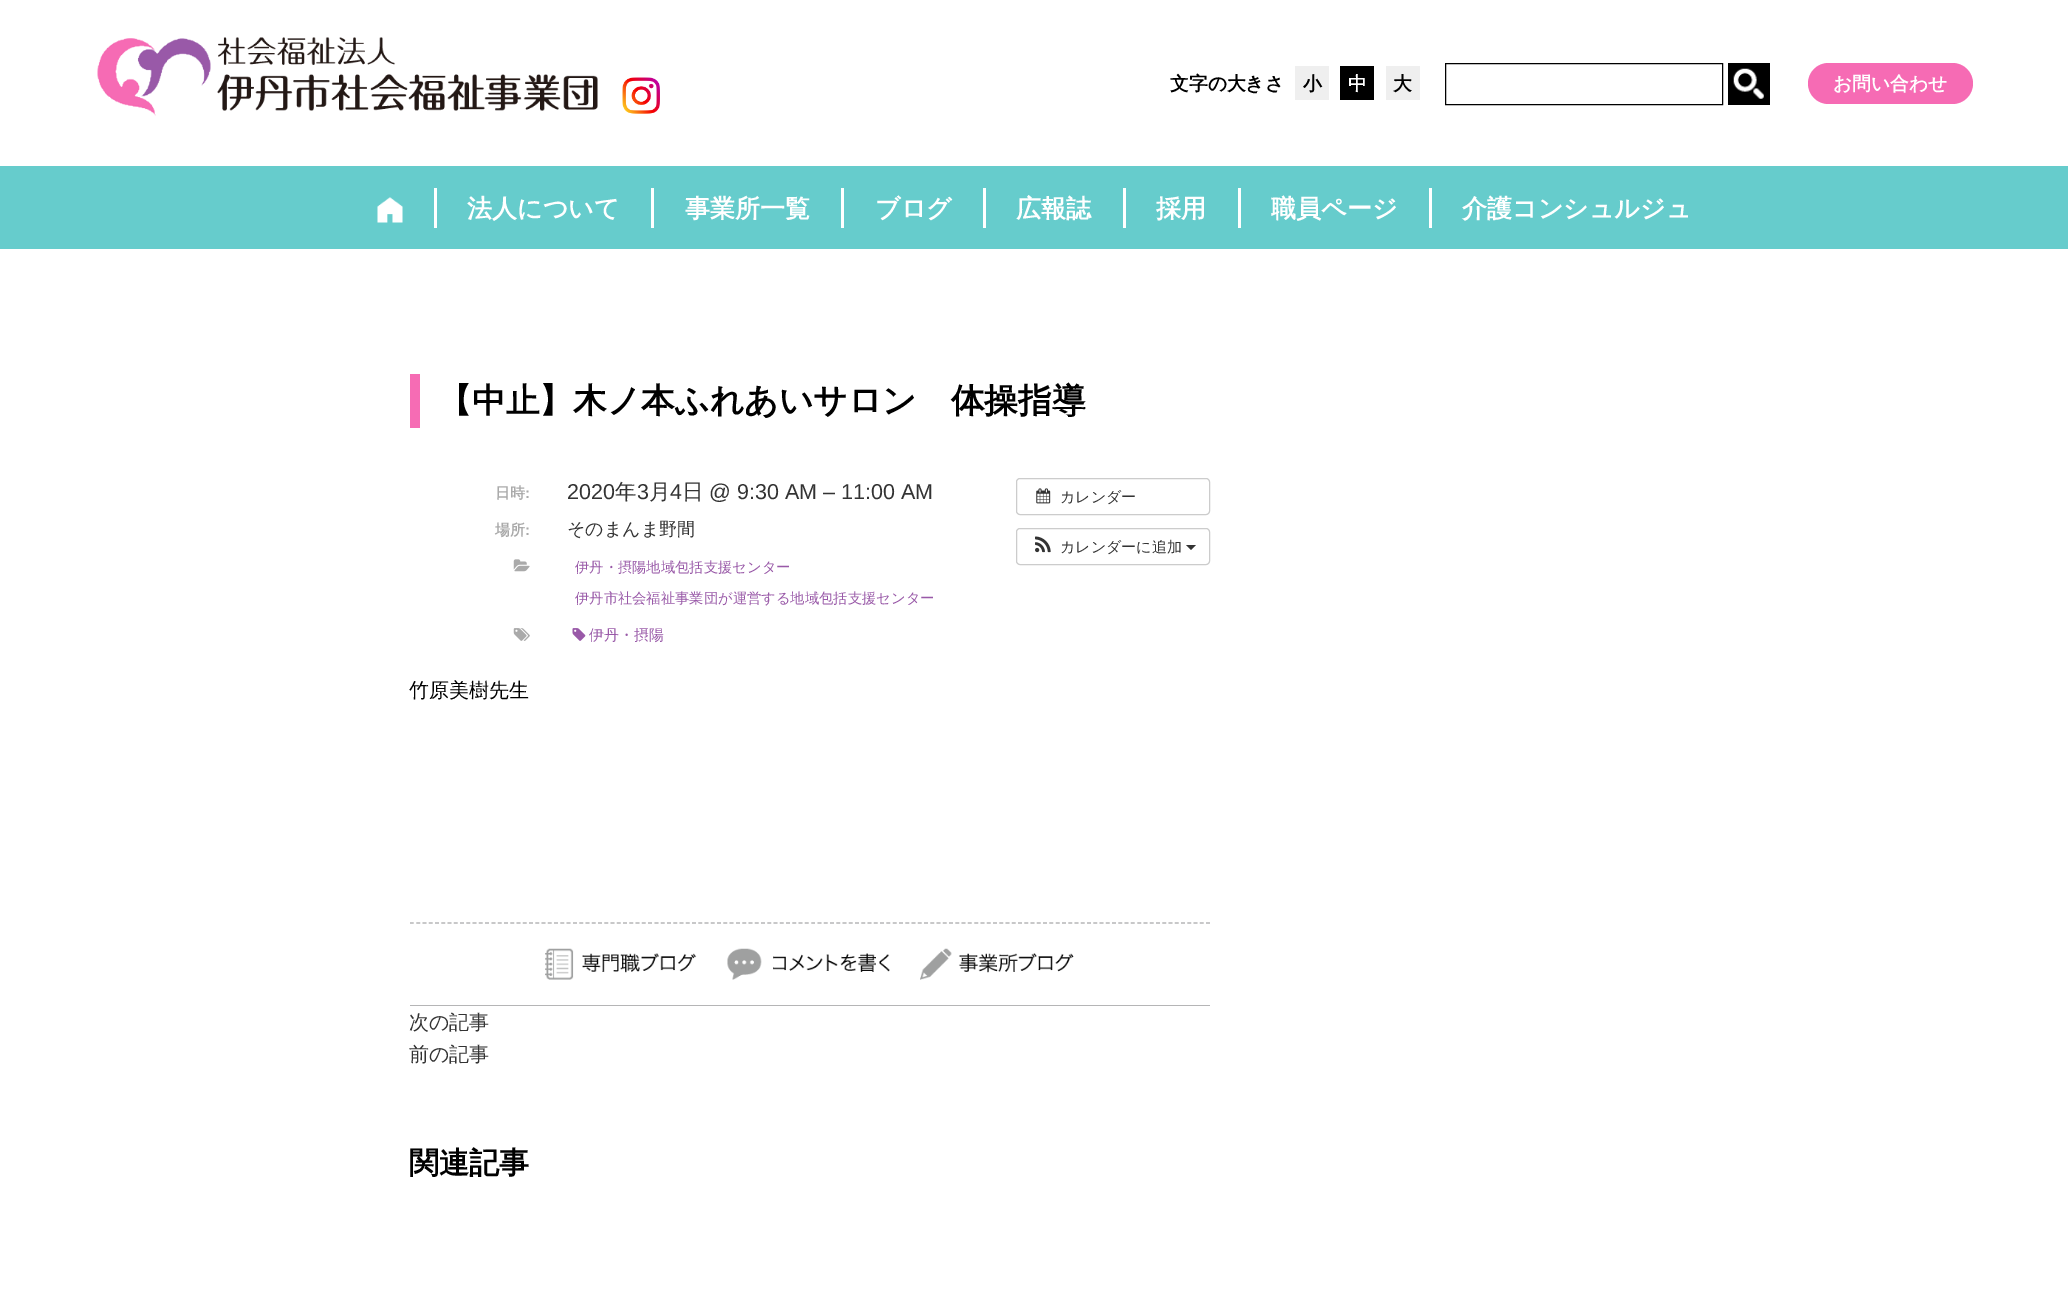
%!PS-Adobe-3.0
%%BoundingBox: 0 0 2068 1306
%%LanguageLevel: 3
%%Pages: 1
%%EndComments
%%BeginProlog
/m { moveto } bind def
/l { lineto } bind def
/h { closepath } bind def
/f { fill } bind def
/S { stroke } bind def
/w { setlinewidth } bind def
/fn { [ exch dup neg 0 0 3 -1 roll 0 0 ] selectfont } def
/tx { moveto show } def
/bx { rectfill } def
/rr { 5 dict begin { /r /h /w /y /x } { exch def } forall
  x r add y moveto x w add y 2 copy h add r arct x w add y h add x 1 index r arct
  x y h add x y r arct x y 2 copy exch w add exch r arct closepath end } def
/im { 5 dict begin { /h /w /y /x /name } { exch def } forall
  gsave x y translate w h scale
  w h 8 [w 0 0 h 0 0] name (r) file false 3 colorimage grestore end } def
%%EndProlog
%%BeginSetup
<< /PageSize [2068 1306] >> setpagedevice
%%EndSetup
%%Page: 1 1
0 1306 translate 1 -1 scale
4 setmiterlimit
1 setgray
0 0 2068 1306 bx
(image0.raw) 97 37 501 79 im
(image1.raw) 622 77 38 37 im
/WenQuanYiZenHei-Bold 18.75 fn
0 setgray
(文字の大きさ) 1170 90 tx
0.937 setgray
1295 66 34 34 bx
0 setgray
(小) 1303 90 tx
1340 66 34 34 bx
1 setgray
(中) 1348 90 tx
0.937 setgray
1386 66 34 34 bx
0 setgray
(大) 1393 90 tx
1445.5 63.5 277 41 rectstroke
1728 63 42 42 bx
(image2.raw) 1733 68 31 31 im
0.965 0.42 0.706 setrgbcolor
1808 63 165 41 20.5 rr f
1 setgray
(お問い合わせ) 1833 90 tx
0.4 0.8 0.8 setrgbcolor
0 166 2068 83 bx
1 setgray
434 188 3 40 bx
(image3.raw) 377 197 26 26 im
651 188 3 40 bx
/WenQuanYiZenHei-Bold 25 fn
(法人について) 467 217 tx
841 188 3 40 bx
(事業所一覧) 685 217 tx
983 188 3 40 bx
(ブログ) 875 217 tx
1123 188 3 40 bx
(広報誌) 1016 217 tx
1238 188 3 40 bx
(採用) 1156 217 tx
1429 188 3 40 bx
(職員ページ) 1271 217 tx
(介護コンシュルジュ) 1462 217 tx
0.965 0.424 0.706 setrgbcolor
410 374 10 54 bx
/WenQuanYiZenHei-Bold 33.75 fn
0 setgray
(【中止】木ノ本ふれあいサロン　体操指導) 438 412 tx
/WenQuanYiZenHei-Bold 15 fn
0.667 setgray
(日時) 495 498 tx
/LiberationSans-Bold 15 fn
(:) 525 498 tx
/LiberationSans-Regular 21.5 fn
0.2 setgray
(2020) 567 499 tx
/WenQuanYiZenHei-Medium 21.5 fn
(年) 615 499 tx
/LiberationSans-Regular 21.5 fn
(3) 637 499 tx
/WenQuanYiZenHei-Medium 21.5 fn
(月) 649 499 tx
/LiberationSans-Regular 21.5 fn
(4) 670 499 tx
/WenQuanYiZenHei-Medium 21.5 fn
(日) 682 499 tx
/LiberationSans-Regular 21.5 fn
(@ 9:30 AM – 11:00 AM) 709 499 tx
/WenQuanYiZenHei-Bold 15 fn
0.667 setgray
(場所) 495 535 tx
/LiberationSans-Bold 15 fn
(:) 525 535 tx
/WenQuanYiZenHei-Medium 18 fn
0.2 setgray
(そのまんま野間) 567 535 tx
(image4.raw) 513 559 17 13 im
/WenQuanYiZenHei-Medium 14.3 fn
0.6 0.349 0.659 setrgbcolor
(伊丹・摂陽地域包括支援センター) 575 572 tx
(伊丹市社会福祉事業団が運営する地域包括支援センター) 575 603 tx
(image5.raw) 513 628 17 13 im
(image6.raw) 572 628 14 13 im
/WenQuanYiZenHei-Medium 15 fn
(伊丹・摂陽) 589 640 tx
0.8 setgray
1016.5 478.5 193 36 3.5 rr S
(image7.raw) 1036 488 15 16 im
0.2 setgray
(カレンダー) 1060 502 tx
0.8 setgray
1016.5 528.5 193 36 3.5 rr S
(image8.raw) 1035 536 16 17 im
0.2 setgray
(カレンダーに追加) 1060 552 tx
1186 545 m 1196 545 l 1191 550 l h f
/WenQuanYiZenHei-Medium 20 fn
0 setgray
(竹原美樹先生) 409 697 tx
0.71 0.71 0.714 setrgbcolor
1.2 w
[3.75 2.52] 0 setdash
410 923 m 1210 923 l S
410 1005 800 1 bx
(image9.raw) 545 948 152 32 im
(image10.raw) 727 948 163 32 im
(image11.raw) 920 948 154 32 im
0.2 setgray
(次の記事) 409 1029 tx
(前の記事) 409 1061 tx
/WenQuanYiZenHei-Bold 30 fn
0 setgray
(関連記事) 409 1173 tx
showpage
%%EOF
